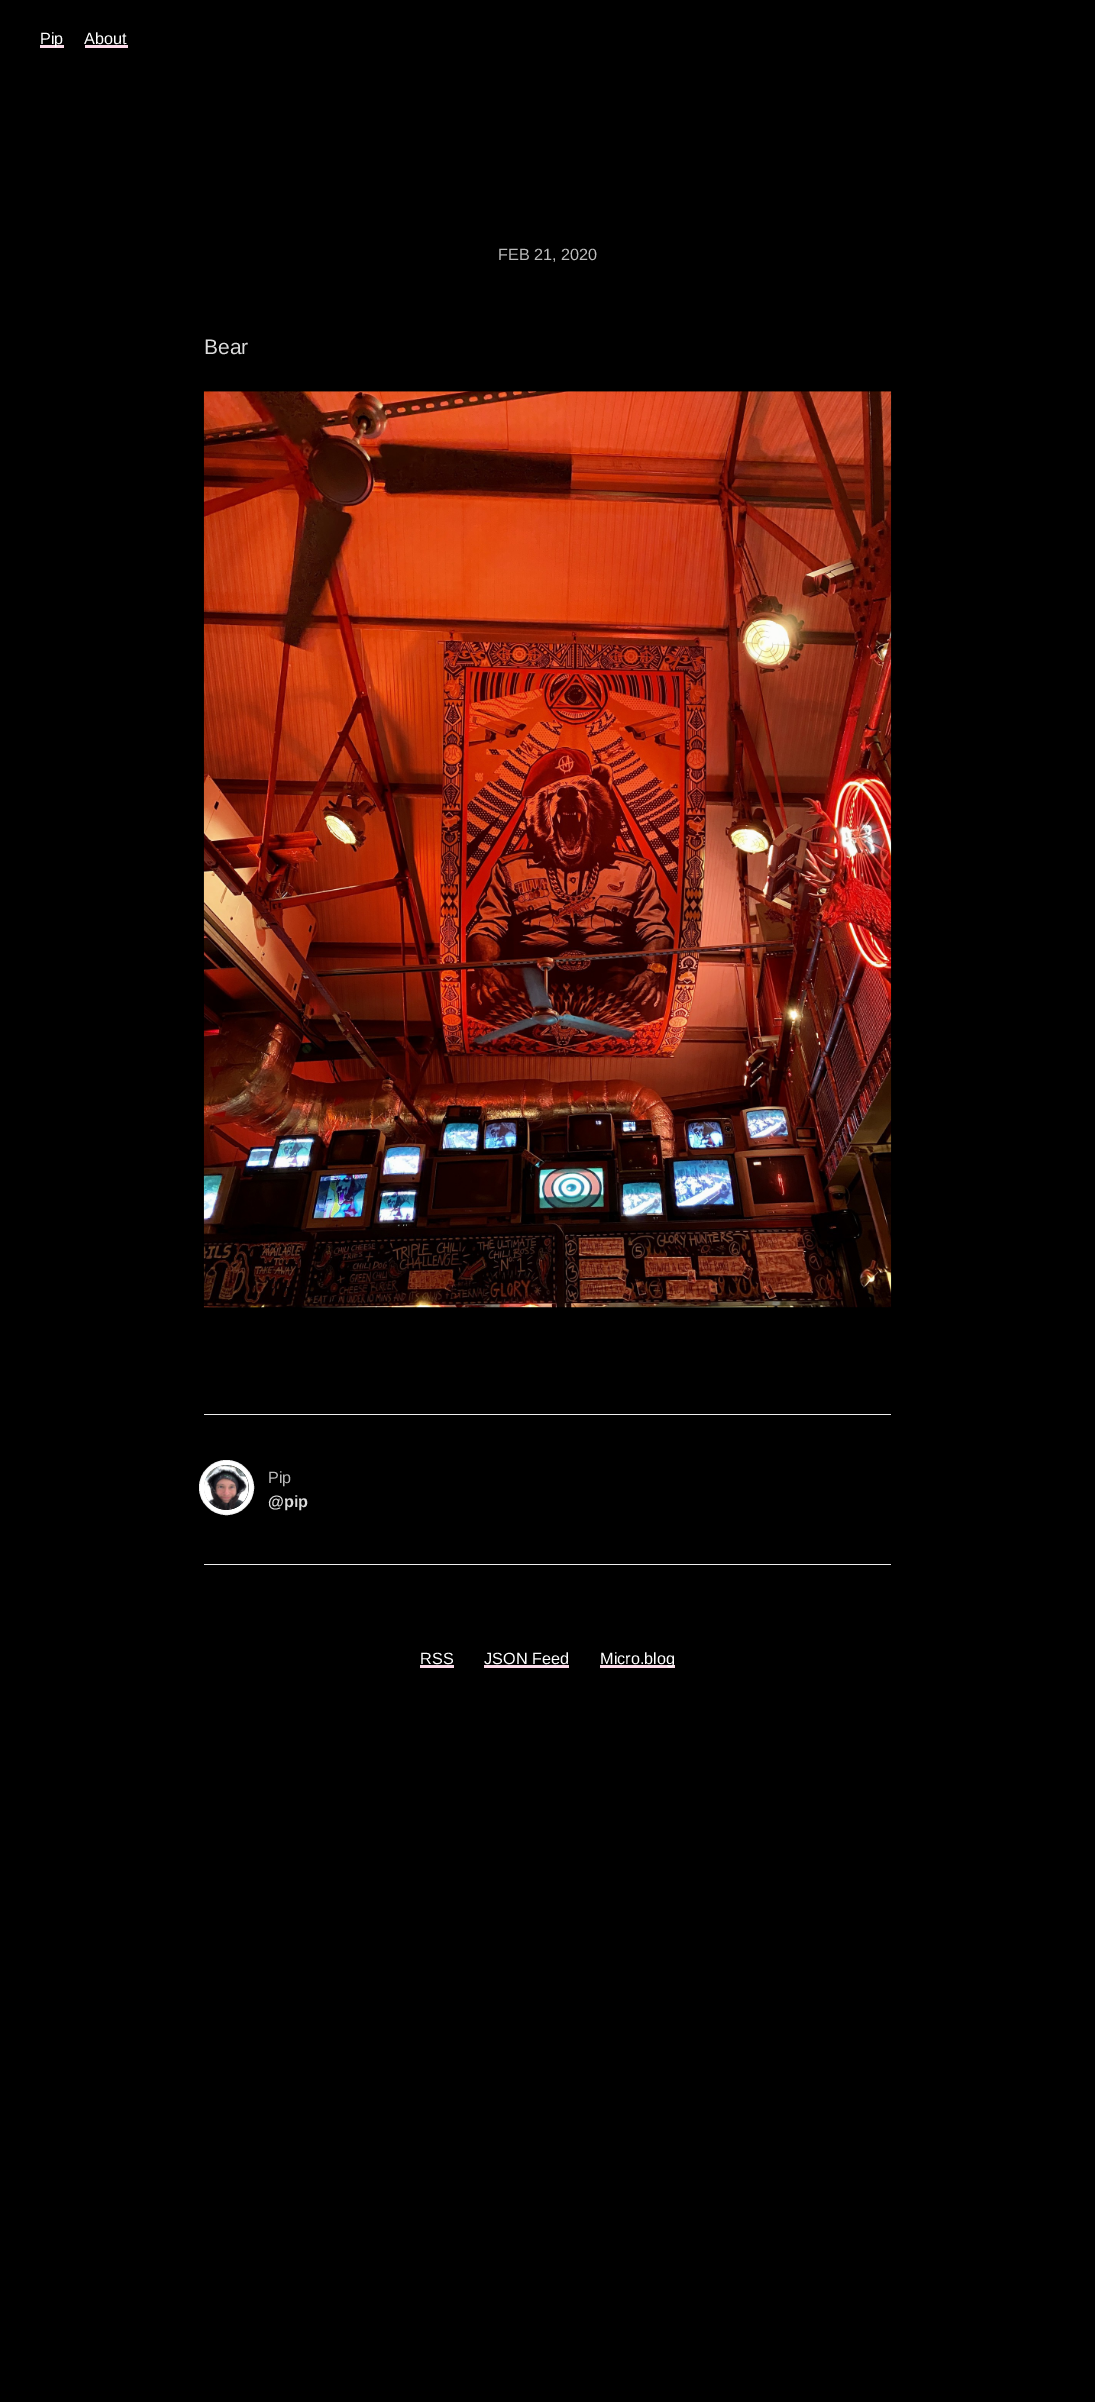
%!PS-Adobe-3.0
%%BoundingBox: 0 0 1095 2402
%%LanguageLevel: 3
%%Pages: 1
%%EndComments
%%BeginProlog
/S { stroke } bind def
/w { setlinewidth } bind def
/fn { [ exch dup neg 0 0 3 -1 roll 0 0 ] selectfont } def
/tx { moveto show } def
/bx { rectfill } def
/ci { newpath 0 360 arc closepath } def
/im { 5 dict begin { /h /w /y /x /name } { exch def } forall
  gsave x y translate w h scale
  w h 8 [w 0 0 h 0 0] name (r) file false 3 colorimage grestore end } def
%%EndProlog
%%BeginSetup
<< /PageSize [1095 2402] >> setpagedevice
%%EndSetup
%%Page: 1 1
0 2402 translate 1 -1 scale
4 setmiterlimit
0 setgray
0 0 1095 2402 bx
0.988 0.855 0.914 setrgbcolor
40 45 24 3 bx
/LiberationSans-Regular 16.25 fn
1 setgray
(Pip) 40 44 tx
(About) 84 44 tx
0.988 0.855 0.914 setrgbcolor
85 45 43 3 bx
0.733 setgray
(FEB 21, 2020) 498 260 tx
/LiberationSans-Regular 21 fn
0.867 setgray
(Bear) 204 354 tx
(image0.raw) 203 391 689 917 im
0.933 setgray
204 1414 687 1 bx
204 1564 687 1 bx
5 w
226.5 1487.5 25 ci S
1 setgray
4 w
226.5 1487.5 24.5 ci S
(image1.raw) 204 1465 45 45 im
/LiberationSans-Regular 16.25 fn
0.733 setgray
(Pip) 268 1483 tx
/LiberationSans-Bold 16.25 fn
0.867 setgray
(@pip) 268 1507 tx
/LiberationSans-Regular 16.25 fn
1 setgray
(RSS) 420 1664 tx
0.988 0.855 0.914 setrgbcolor
420 1665 34 3 bx
1 setgray
(JSON Feed) 484 1664 tx
0.988 0.855 0.914 setrgbcolor
484 1665 85 3 bx
600 1665 75 3 bx
1 setgray
(Micro.blog) 600 1664 tx
showpage
%%EOF
